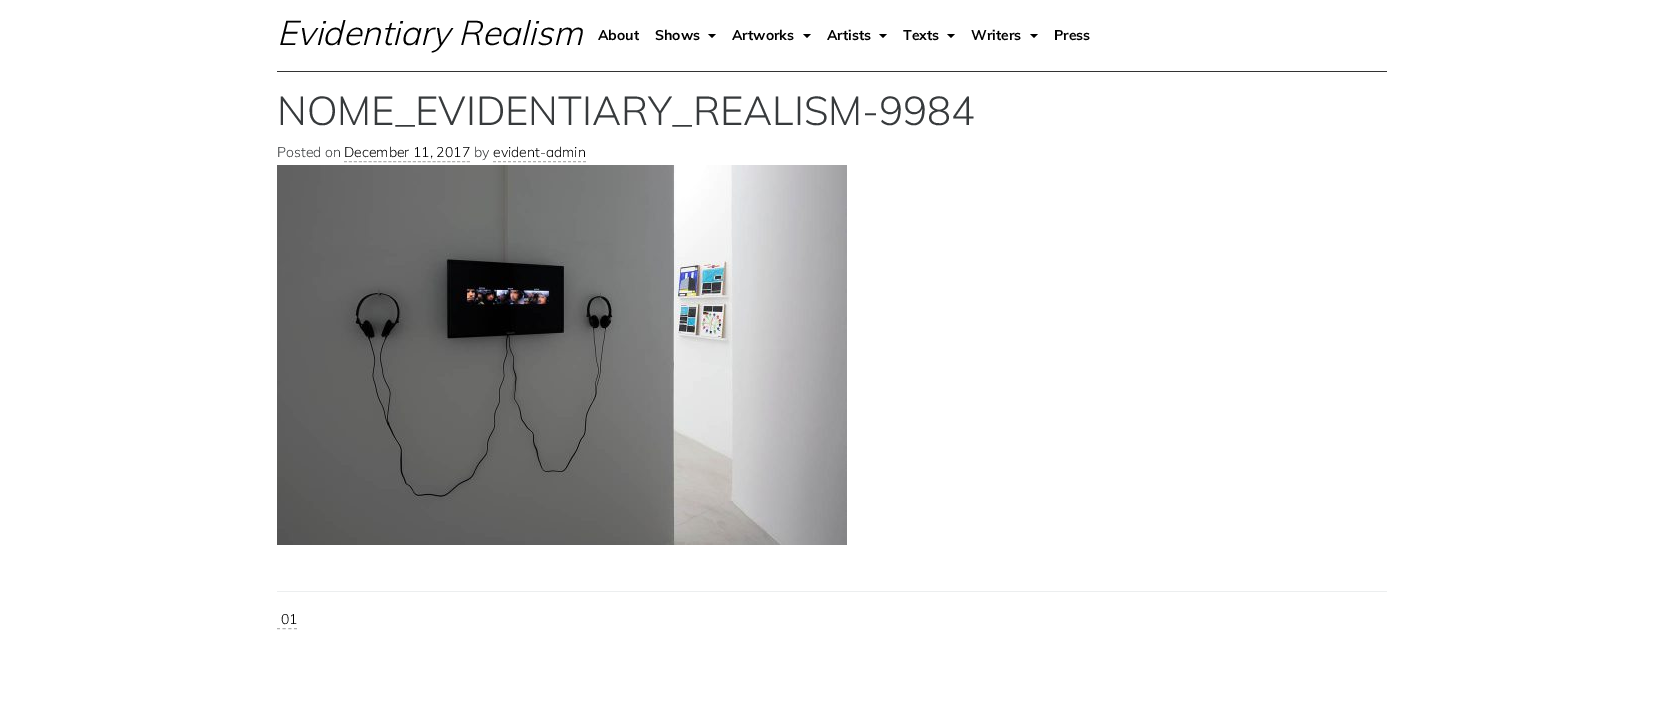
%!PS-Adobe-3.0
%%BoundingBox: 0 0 1664 702
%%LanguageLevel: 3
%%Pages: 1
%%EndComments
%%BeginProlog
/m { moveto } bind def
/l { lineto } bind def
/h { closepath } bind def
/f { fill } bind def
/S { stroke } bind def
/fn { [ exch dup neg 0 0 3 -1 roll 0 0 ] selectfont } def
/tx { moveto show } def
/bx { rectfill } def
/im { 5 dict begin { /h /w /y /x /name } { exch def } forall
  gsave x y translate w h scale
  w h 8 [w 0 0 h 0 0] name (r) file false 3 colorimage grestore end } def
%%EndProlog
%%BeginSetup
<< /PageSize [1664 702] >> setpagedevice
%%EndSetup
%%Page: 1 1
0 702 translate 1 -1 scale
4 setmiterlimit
1 setgray
0 0 1664 702 bx
/Muli-LightItalic 34 fn
0 setgray
(Evidentiary Realism) 277 45 tx
/Muli-Bold 14 fn
(About) 598 40 tx
(Shows) 655 40 tx
708 34 m 716 34 l 712 38 l h f
(Artworks) 732 40 tx
803 34 m 811 34 l 807 38 l h f
(Artists) 827 40 tx
879 34 m 887 34 l 883 38 l h f
(Texts) 903 40 tx
947 34 m 955 34 l 951 38 l h f
(Writers) 971 40 tx
1030 34 m 1038 34 l 1034 38 l h f
(Press) 1054 40 tx
0.2 setgray
277 71 1110 1 bx
/Muli-Light 40 fn
0.216 0.227 0.235 setrgbcolor
(NOME_EVIDENTIARY_REALISM-9984) 277 125 tx
/Muli-Light 14 fn
(Posted on) 277 157 tx
0 setgray
(December 11, 2017) 344 157 tx
0.698 setgray
[3 1.92] 0 setdash
344 161.5 m 470 161.5 l S
0.216 0.227 0.235 setrgbcolor
(by) 474 157 tx
0.698 setgray
[3 2] 0 setdash
493 161.5 m 586 161.5 l S
0 setgray
(evident-admin) 493 157 tx
(image0.raw) 277 165 570 380 im
0.925 0.933 0.937 setrgbcolor
277 591 1110 1 bx
0 setgray
(01) 281 624 tx
0.698 setgray
[3 2.67] 0 setdash
277 628.5 m 297 628.5 l S
showpage
%%EOF
